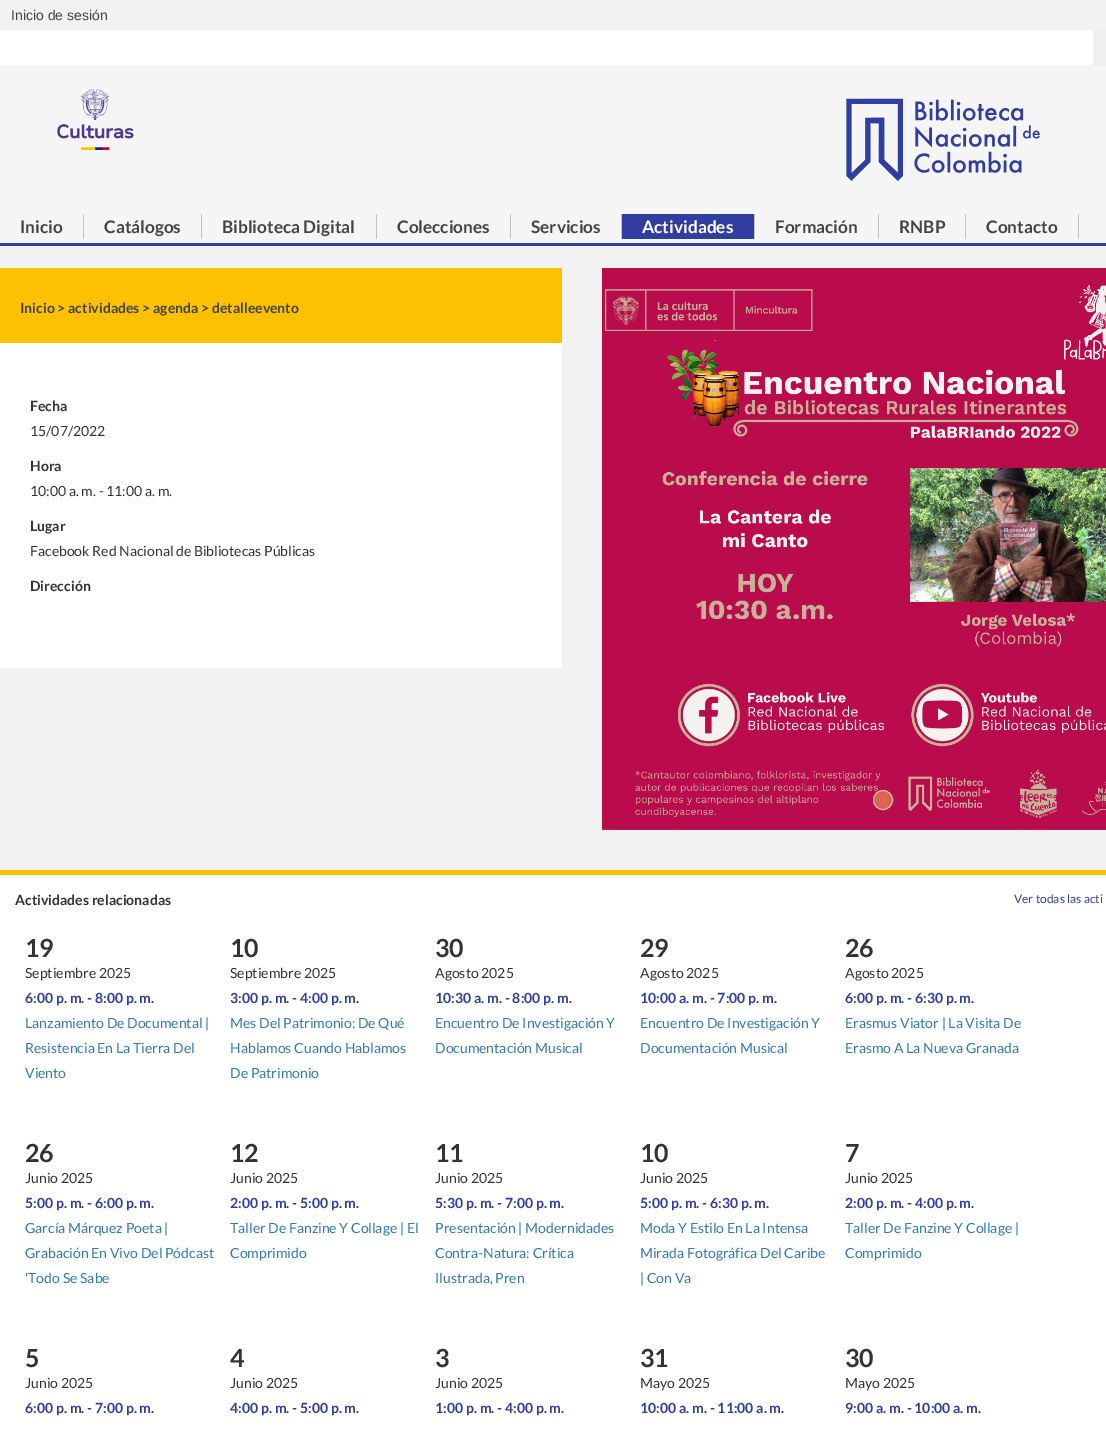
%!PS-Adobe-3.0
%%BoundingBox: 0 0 1106 1430
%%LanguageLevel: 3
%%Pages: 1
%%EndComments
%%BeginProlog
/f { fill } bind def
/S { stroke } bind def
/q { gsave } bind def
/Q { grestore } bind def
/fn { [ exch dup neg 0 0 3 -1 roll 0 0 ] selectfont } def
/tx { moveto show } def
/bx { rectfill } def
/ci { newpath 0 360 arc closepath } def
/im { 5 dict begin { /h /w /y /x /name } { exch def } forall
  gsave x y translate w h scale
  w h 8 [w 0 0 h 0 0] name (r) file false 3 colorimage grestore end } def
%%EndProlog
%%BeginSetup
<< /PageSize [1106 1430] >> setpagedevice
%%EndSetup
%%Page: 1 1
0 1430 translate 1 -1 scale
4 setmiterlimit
0.949 setgray
0 0 1106 1430 bx
/LiberationSans-Regular 14 fn
0.267 setgray
(Inicio de sesión) 11 20 tx
0.961 setgray
0 65 1106 178 bx
0.937 setgray
1093 30 13 35 bx
1 setgray
0 30 1093 35 bx
(image0.raw) 57 89 77 61 im
(image1.raw) 846 98 194 83 im
0.188 0.247 0.624 setrgbcolor
0 243 1106 3 bx
0.761 0.765 0.765 setrgbcolor
83 214 1 25 bx
/Lato-Bold 17.25 fn
0.267 setgray
(Inicio) 20 233 tx
0.761 0.765 0.765 setrgbcolor
201 214 1 25 bx
0.267 setgray
(Catálogos) 104 233 tx
0.761 0.765 0.765 setrgbcolor
376 214 1 25 bx
0.267 setgray
(Biblioteca Digital) 222 233 tx
0.761 0.765 0.765 setrgbcolor
510 214 1 25 bx
0.267 setgray
(Colecciones) 397 233 tx
0.761 0.765 0.765 setrgbcolor
621 214 1 25 bx
0.267 setgray
(Servicios) 531 233 tx
0.188 0.247 0.624 setrgbcolor
622 214 132 25 bx
0.761 0.765 0.765 setrgbcolor
754 214 1 25 bx
1 setgray
(Actividades) 642 233 tx
0.761 0.765 0.765 setrgbcolor
878 214 1 25 bx
0.267 setgray
(Formación) 775 233 tx
0.761 0.765 0.765 setrgbcolor
965 214 1 25 bx
0.267 setgray
(RNBP) 899 233 tx
0.761 0.765 0.765 setrgbcolor
1078 214 1 25 bx
0.267 setgray
(Contacto) 986 233 tx
0.992 0.757 0.008 setrgbcolor
0 268 562 75 bx
/Lato-Bold 14 fn
0.267 setgray
(Inicio > actividades > agenda > detalleevento) 20 313 tx
1 setgray
0 343 562 325 bx
0.2 setgray
(Fecha) 30 411 tx
/Lato-Regular 14 fn
(15/07/2022) 30 436 tx
/Lato-Bold 14 fn
(Hora) 30 471 tx
/Lato-Regular 14 fn
(10:00 a. m. - 11:00 a. m.) 30 496 tx
/Lato-Bold 14 fn
(Lugar) 30 531 tx
/Lato-Regular 14 fn
(Facebook Red Nacional de Bibliotecas Públicas) 30 556 tx
/Lato-Bold 14 fn
(Dirección) 30 591 tx
(image2.raw) 602 268 504 562 im
0.867 0.392 0.29 setrgbcolor
883 800 9.5 ci q f Q
0.761 0.765 0.765 setrgbcolor
S
1 setgray
0 875 1106 555 bx
0.992 0.757 0.008 setrgbcolor
0 870 1106 5 bx
0.2 setgray
(Actividades relacionadas) 15 905 tx
/Lato-Regular 12 fn
0.188 0.247 0.624 setrgbcolor
(Ver todas las acti) 1014 903 tx
/Lato-Bold 25 fn
0.2 setgray
(19) 25 957 tx
/Lato-Regular 14 fn
(Septiembre 2025) 25 978 tx
/Lato-Bold 14 fn
0.188 0.247 0.624 setrgbcolor
(6:00 p. m. - 8:00 p. m.) 25 1003 tx
/Lato-Regular 14 fn
0.2 0.478 0.718 setrgbcolor
(Lanzamiento De Documental |) 25 1028 tx
(Resistencia En La Tierra Del) 25 1053 tx
(Viento) 25 1078 tx
/Lato-Bold 25 fn
0.2 setgray
(10) 230 957 tx
/Lato-Regular 14 fn
(Septiembre 2025) 230 978 tx
/Lato-Bold 14 fn
0.188 0.247 0.624 setrgbcolor
(3:00 p. m. - 4:00 p. m.) 230 1003 tx
/Lato-Regular 14 fn
0.2 0.478 0.718 setrgbcolor
(Mes Del Patrimonio: De Qué) 230 1028 tx
(Hablamos Cuando Hablamos) 230 1053 tx
(De Patrimonio) 230 1078 tx
/Lato-Bold 25 fn
0.2 setgray
(30) 435 957 tx
/Lato-Regular 14 fn
(Agosto 2025) 435 978 tx
/Lato-Bold 14 fn
0.188 0.247 0.624 setrgbcolor
(10:30 a. m. - 8:00 p. m.) 435 1003 tx
/Lato-Regular 14 fn
0.2 0.478 0.718 setrgbcolor
(Encuentro De Investigación Y) 435 1028 tx
(Documentación Musical) 435 1053 tx
/Lato-Bold 25 fn
0.2 setgray
(29) 640 957 tx
/Lato-Regular 14 fn
(Agosto 2025) 640 978 tx
/Lato-Bold 14 fn
0.188 0.247 0.624 setrgbcolor
(10:00 a. m. - 7:00 p. m.) 640 1003 tx
/Lato-Regular 14 fn
0.2 0.478 0.718 setrgbcolor
(Encuentro De Investigación Y) 640 1028 tx
(Documentación Musical) 640 1053 tx
/Lato-Bold 25 fn
0.2 setgray
(26) 845 957 tx
/Lato-Regular 14 fn
(Agosto 2025) 845 978 tx
/Lato-Bold 14 fn
0.188 0.247 0.624 setrgbcolor
(6:00 p. m. - 6:30 p. m.) 845 1003 tx
/Lato-Regular 14 fn
0.2 0.478 0.718 setrgbcolor
(Erasmus Viator | La Visita De) 845 1028 tx
(Erasmo A La Nueva Granada) 845 1053 tx
/Lato-Bold 25 fn
0.2 setgray
(26) 25 1162 tx
/Lato-Regular 14 fn
(Junio 2025) 25 1183 tx
/Lato-Bold 14 fn
0.188 0.247 0.624 setrgbcolor
(5:00 p. m. - 6:00 p. m.) 25 1208 tx
/Lato-Regular 14 fn
0.2 0.478 0.718 setrgbcolor
(García Márquez Poeta |) 25 1233 tx
(Grabación En Vivo Del Pódcast) 25 1258 tx
('Todo Se Sabe) 25 1283 tx
/Lato-Bold 25 fn
0.2 setgray
(12) 230 1162 tx
/Lato-Regular 14 fn
(Junio 2025) 230 1183 tx
/Lato-Bold 14 fn
0.188 0.247 0.624 setrgbcolor
(2:00 p. m. - 5:00 p. m.) 230 1208 tx
/Lato-Regular 14 fn
0.2 0.478 0.718 setrgbcolor
(Taller De Fanzine Y Collage | El) 230 1233 tx
(Comprimido) 230 1258 tx
/Lato-Bold 25 fn
0.2 setgray
(11) 435 1162 tx
/Lato-Regular 14 fn
(Junio 2025) 435 1183 tx
/Lato-Bold 14 fn
0.188 0.247 0.624 setrgbcolor
(5:30 p. m. - 7:00 p. m.) 435 1208 tx
/Lato-Regular 14 fn
0.2 0.478 0.718 setrgbcolor
(Presentación | Modernidades) 435 1233 tx
(Contra-Natura: Crítica) 435 1258 tx
(Ilustrada, Pren) 435 1283 tx
/Lato-Bold 25 fn
0.2 setgray
(10) 640 1162 tx
/Lato-Regular 14 fn
(Junio 2025) 640 1183 tx
/Lato-Bold 14 fn
0.188 0.247 0.624 setrgbcolor
(5:00 p. m. - 6:30 p. m.) 640 1208 tx
/Lato-Regular 14 fn
0.2 0.478 0.718 setrgbcolor
(Moda Y Estilo En La Intensa) 640 1233 tx
(Mirada Fotográfica Del Caribe) 640 1258 tx
(| Con Va) 640 1283 tx
/Lato-Bold 25 fn
0.2 setgray
(7) 845 1162 tx
/Lato-Regular 14 fn
(Junio 2025) 845 1183 tx
/Lato-Bold 14 fn
0.188 0.247 0.624 setrgbcolor
(2:00 p. m. - 4:00 p. m.) 845 1208 tx
/Lato-Regular 14 fn
0.2 0.478 0.718 setrgbcolor
(Taller De Fanzine Y Collage |) 845 1233 tx
(Comprimido) 845 1258 tx
/Lato-Bold 25 fn
0.2 setgray
(5) 25 1367 tx
/Lato-Regular 14 fn
(Junio 2025) 25 1388 tx
/Lato-Bold 14 fn
0.188 0.247 0.624 setrgbcolor
(6:00 p. m. - 7:00 p. m.) 25 1413 tx
/Lato-Bold 25 fn
0.2 setgray
(4) 230 1367 tx
/Lato-Regular 14 fn
(Junio 2025) 230 1388 tx
/Lato-Bold 14 fn
0.188 0.247 0.624 setrgbcolor
(4:00 p. m. - 5:00 p. m.) 230 1413 tx
/Lato-Bold 25 fn
0.2 setgray
(3) 435 1367 tx
/Lato-Regular 14 fn
(Junio 2025) 435 1388 tx
/Lato-Bold 14 fn
0.188 0.247 0.624 setrgbcolor
(1:00 p. m. - 4:00 p. m.) 435 1413 tx
/Lato-Bold 25 fn
0.2 setgray
(31) 640 1367 tx
/Lato-Regular 14 fn
(Mayo 2025) 640 1388 tx
/Lato-Bold 14 fn
0.188 0.247 0.624 setrgbcolor
(10:00 a. m. - 11:00 a. m.) 640 1413 tx
/Lato-Bold 25 fn
0.2 setgray
(30) 845 1367 tx
/Lato-Regular 14 fn
(Mayo 2025) 845 1388 tx
/Lato-Bold 14 fn
0.188 0.247 0.624 setrgbcolor
(9:00 a. m. - 10:00 a. m.) 845 1413 tx
showpage
%%EOF
